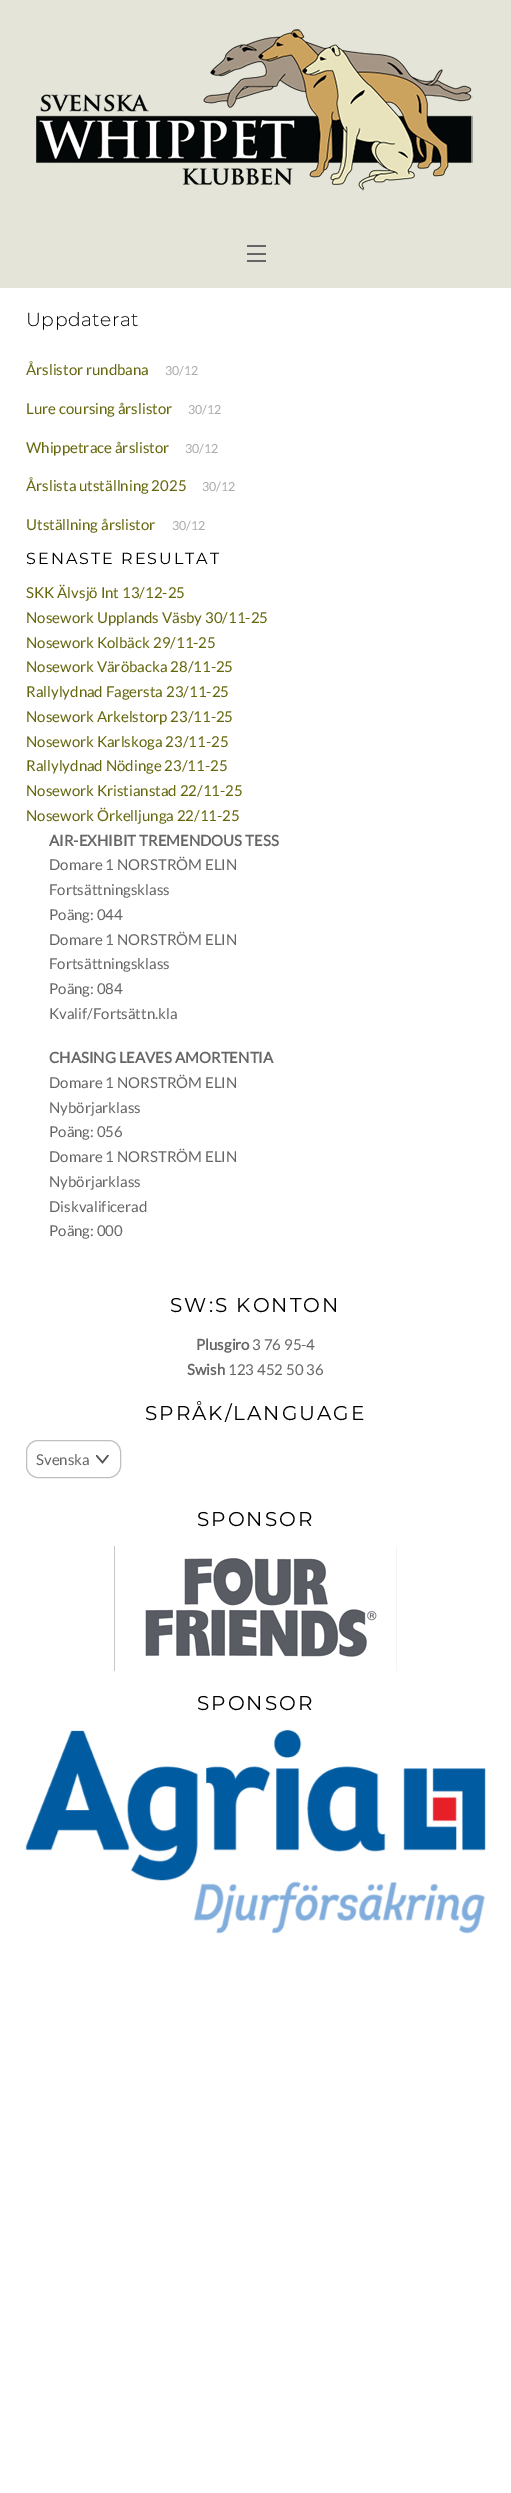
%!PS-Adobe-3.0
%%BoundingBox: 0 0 511 2493
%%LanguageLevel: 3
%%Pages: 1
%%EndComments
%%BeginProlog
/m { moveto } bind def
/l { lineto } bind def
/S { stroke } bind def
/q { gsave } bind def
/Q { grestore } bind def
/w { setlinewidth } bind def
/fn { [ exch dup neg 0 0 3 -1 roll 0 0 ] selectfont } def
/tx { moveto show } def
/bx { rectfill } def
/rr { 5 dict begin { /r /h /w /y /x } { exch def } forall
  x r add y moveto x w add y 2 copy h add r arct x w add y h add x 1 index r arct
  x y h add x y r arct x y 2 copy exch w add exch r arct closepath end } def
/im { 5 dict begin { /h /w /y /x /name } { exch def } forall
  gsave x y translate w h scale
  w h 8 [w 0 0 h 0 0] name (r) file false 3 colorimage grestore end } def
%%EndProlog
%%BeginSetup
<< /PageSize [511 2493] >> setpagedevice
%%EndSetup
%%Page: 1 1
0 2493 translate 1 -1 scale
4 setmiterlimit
1 setgray
0 0 511 2493 bx
0.894 0.894 0.847 setrgbcolor
0 0 511 288 bx
(image0.raw) 36 29 437 162 im
0.4 setgray
247 260 19 2 bx
247 245 19 2 bx
247 253 19 2 bx
/Montserrat-Light 18.75 fn
0 setgray
26 326 m 0.5 0 (Uppdaterat) ashow
/Lato-Regular 15 fn
0.4 0.4 0.047 setrgbcolor
(Årslistor rundbana) 26 375 tx
/Lato-Regular 12.5 fn
0.667 setgray
(30/12) 165 375 tx
/Lato-Regular 15 fn
0.4 0.4 0.047 setrgbcolor
(Lure coursing årslistor) 26 414 tx
/Lato-Regular 12.5 fn
0.667 setgray
(30/12) 188 414 tx
/Lato-Regular 15 fn
0.4 0.4 0.047 setrgbcolor
(Whippetrace årslistor) 26 453 tx
/Lato-Regular 12.5 fn
0.667 setgray
(30/12) 185 453 tx
/Lato-Regular 15 fn
0.4 0.4 0.047 setrgbcolor
(Årslista utställning 2025) 26 491 tx
/Lato-Regular 12.5 fn
0.667 setgray
(30/12) 202 491 tx
/Lato-Regular 15 fn
0.4 0.4 0.047 setrgbcolor
(Utställning årslistor) 26 530 tx
/Lato-Regular 12.5 fn
0.667 setgray
(30/12) 172 530 tx
/Montserrat-Regular 16 fn
0 setgray
26 564 m 2 0 (SENASTE RESULTAT) ashow
/Lato-Regular 15 fn
0.4 0.4 0.047 setrgbcolor
(SKK Älvsjö Int 13/12-25) 26 598 tx
(Nosework Upplands Väsby 30/11-25) 26 623 tx
(Nosework Kolbäck 29/11-25) 26 648 tx
(Nosework Väröbacka 28/11-25) 26 672 tx
(Rallylydnad Fagersta 23/11-25) 26 697 tx
(Nosework Arkelstorp 23/11-25) 26 722 tx
(Nosework Karlskoga 23/11-25) 26 747 tx
(Rallylydnad Nödinge 23/11-25) 26 771 tx
(Nosework Kristianstad 22/11-25) 26 796 tx
(Nosework Örkelljunga 22/11-25) 26 821 tx
/Lato-Bold 15 fn
0.4 setgray
(AIR-EXHIBIT TREMENDOUS TESS) 49 846 tx
/Lato-Regular 15 fn
(Domare 1 NORSTRÖM ELIN) 49 870 tx
(Fortsättningsklass) 49 895 tx
(Poäng: 044) 49 920 tx
(Domare 1 NORSTRÖM ELIN) 49 945 tx
(Fortsättningsklass) 49 969 tx
(Poäng: 084) 49 994 tx
(Kvalif/Fortsättn.kla) 49 1019 tx
/Lato-Bold 15 fn
(CHASING LEAVES AMORTENTIA) 49 1063 tx
/Lato-Regular 15 fn
(Domare 1 NORSTRÖM ELIN) 49 1088 tx
(Nybörjarklass) 49 1113 tx
(Poäng: 056) 49 1137 tx
(Domare 1 NORSTRÖM ELIN) 49 1162 tx
(Nybörjarklass) 49 1187 tx
(Diskvalificerad) 49 1212 tx
(Poäng: 000) 49 1236 tx
/Montserrat-Regular 20 fn
0 setgray
170 1312 m 2 0 (SW:S KONTON) ashow
/Lato-Bold 15 fn
0.4 setgray
(Plusgiro) 196 1350 tx
/Lato-Regular 15 fn
(3 76 95-4) 252 1350 tx
/Lato-Bold 15 fn
(Swish) 187 1375 tx
/Lato-Regular 15 fn
(123 452 50 36) 228 1375 tx
/Montserrat-Regular 20 fn
0 setgray
145 1420 m 2 0 (SPRÅK/LANGUAGE) ashow
q
96 1455 13 13 rectclip
0.325 setgray
1.5 w
1 setlinecap
96.5 1455.5 m 102.5 1462.5 l 108 1455.5 l S
Q
0.749 setgray
26.5 1440.5 94 37 11.5 rr S
/Lato-Regular 15 fn
0.4 setgray
(Svenska) 36 1465 tx
/Montserrat-Regular 20 fn
0 setgray
197 1526 m 2 0 (SPONSOR) ashow
(image1.raw) 114 1546 283 125 im
197 1710 m 2 0 (SPONSOR) ashow
(image2.raw) 25 1730 461 204 im
showpage
%%EOF
